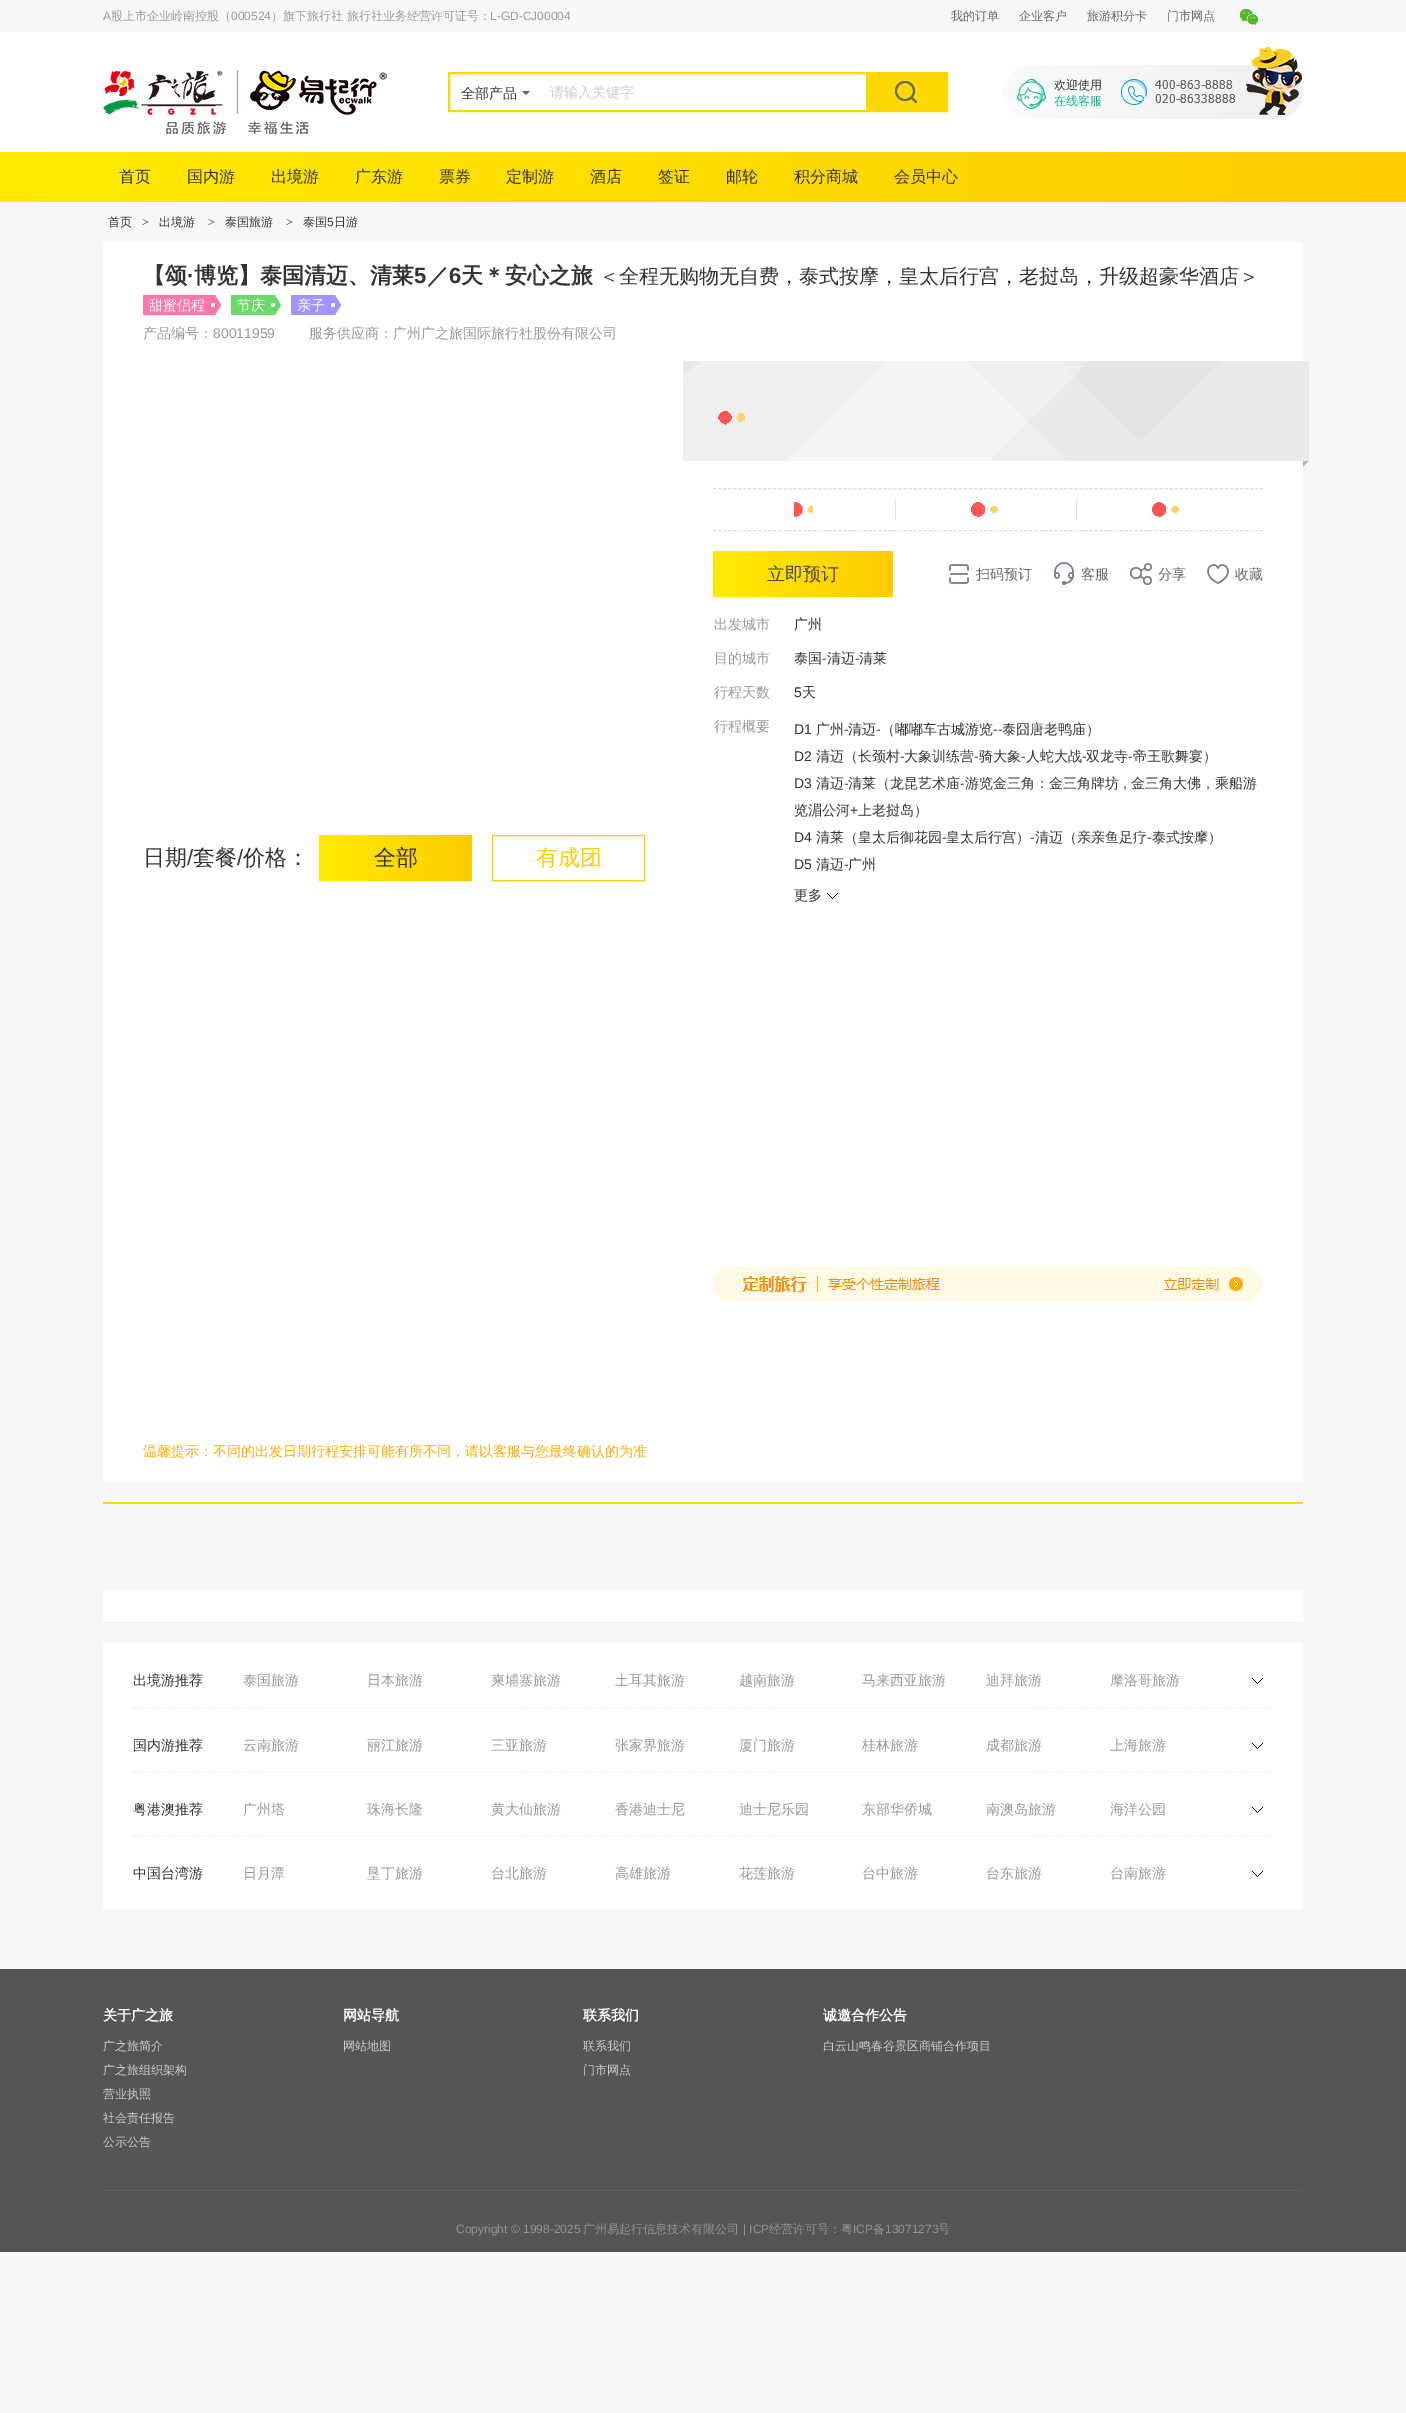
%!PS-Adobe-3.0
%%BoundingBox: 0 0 1406 2413
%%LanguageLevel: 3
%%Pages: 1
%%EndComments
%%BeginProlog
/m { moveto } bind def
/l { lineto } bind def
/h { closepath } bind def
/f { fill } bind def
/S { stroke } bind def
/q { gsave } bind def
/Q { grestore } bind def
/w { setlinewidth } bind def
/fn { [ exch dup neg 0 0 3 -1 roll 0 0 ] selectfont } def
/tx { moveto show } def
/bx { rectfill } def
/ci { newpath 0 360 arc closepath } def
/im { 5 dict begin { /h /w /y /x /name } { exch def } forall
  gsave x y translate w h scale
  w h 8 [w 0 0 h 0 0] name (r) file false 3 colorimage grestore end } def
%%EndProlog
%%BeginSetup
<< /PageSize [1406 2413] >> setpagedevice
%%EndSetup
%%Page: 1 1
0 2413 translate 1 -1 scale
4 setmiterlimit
0.969 setgray
0 0 1406 2413 bx
/LiberationSans-Regular 12 fn
0.6 setgray
(A) 103 20 tx
/WenQuanYiZenHei-Medium 12 fn
(股上市企业岭南控股（) 111 20 tx
/LiberationSans-Regular 12 fn
(000524) 231 20 tx
/WenQuanYiZenHei-Medium 12 fn
(）旗下旅行社 旅行社业务经营许可证号：) 271 20 tx
/LiberationSans-Regular 12 fn
(L-GD-CJ00004) 490 20 tx
/WenQuanYiZenHei-Medium 12 fn
0.4 setgray
(我的订单) 951 20 tx
(企业客户) 1019 20 tx
(旅游积分卡) 1087 20 tx
(门市网点) 1167 20 tx
(image0.raw) 1240 9 18 16 im
1 setgray
0 32 1406 120 bx
(image1.raw) 103 70 284 64 im
1 0.847 0 setrgbcolor
2 w
449 73 498 38 rectstroke
/WenQuanYiZenHei-Medium 14 fn
0.2 setgray
(全部产品) 461 98 tx
0.4 setgray
522 91 m 530 91 l 526 95 l h f
0.8 setgray
(请输入关键字) 550 97 tx
1 0.847 0 setrgbcolor
866 74 80 36 bx
(image2.raw) 895 81 22 22 im
(image3.raw) 1003 47 300 72 im
(image4.raw) 1017 79 29 30 im
/WenQuanYiZenHei-Medium 12 fn
0.2 setgray
(欢迎使用) 1054 89 tx
0.047 0.71 0.584 setrgbcolor
(在线客服) 1054 105 tx
q 0 152 m 1406 152 l 1406 202 l 0 202 l h clip newpath
<< /ShadingType 2 /ColorSpace /DeviceRGB /Coords [0 177 1406 177] /Extend [true true] /Function << /FunctionType 2 /Domain [0 1] /C0 [1 0.922 0] /C1 [0.996 0.8 0] /N 1 >> >> shfill Q
/WenQuanYiZenHei-Medium 16 fn
0.2 setgray
(首页) 119 182 tx
(国内游) 187 182 tx
(出境游) 271 182 tx
(广东游) 355 182 tx
(票券) 439 182 tx
(定制游) 506 182 tx
(酒店) 590 182 tx
(签证) 658 182 tx
(邮轮) 726 182 tx
(积分商城) 794 182 tx
(会员中心) 894 182 tx
/WenQuanYiZenHei-Medium 12 fn
(首页) 108 226 tx
/LiberationSerif-Regular 12 fn
(>) 142 226 tx
/WenQuanYiZenHei-Medium 12 fn
(出境游) 159 226 tx
/LiberationSerif-Regular 12 fn
(>) 208 226 tx
/WenQuanYiZenHei-Medium 12 fn
(泰国旅游) 225 226 tx
/LiberationSerif-Regular 12 fn
(>) 286 226 tx
/WenQuanYiZenHei-Medium 12 fn
(泰国) 303 226 tx
/LiberationSans-Regular 12 fn
(5) 327 226 tx
/WenQuanYiZenHei-Medium 12 fn
(日游) 334 226 tx
1 setgray
103 242 1200 1240 bx
/WenQuanYiZenHei-Bold 22 fn
0.2 setgray
(【颂) 143 283 tx
/LiberationSans-Bold 22 fn
(·) 187 283 tx
/WenQuanYiZenHei-Bold 22 fn
(博览】泰国清迈、清莱) 194 283 tx
/LiberationSans-Bold 22 fn
(5) 414 283 tx
/WenQuanYiZenHei-Bold 22 fn
(／) 427 283 tx
/LiberationSans-Bold 22 fn
(6) 449 283 tx
/WenQuanYiZenHei-Bold 22 fn
(天＊安心之旅) 461 283 tx
/WenQuanYiZenHei-Medium 20 fn
(＜全程无购物无自费，泰式按摩，皇太后行宫，老挝岛，升级超豪华酒店＞) 599 283 tx
0.996 0.459 0.663 setrgbcolor
143 295 72 20 bx
/WenQuanYiZenHei-Medium 14 fn
1 setgray
(甜蜜侣程) 149 310 tx
213 305 2 ci f
0.996 0.459 0.663 setrgbcolor
215 315 m 215 295 l 221 305 l h f
0.416 0.847 0.416 setrgbcolor
231 295 44 20 bx
1 setgray
(节庆) 237 310 tx
273 305 2 ci f
0.416 0.847 0.416 setrgbcolor
275 315 m 275 295 l 281 305 l h f
0.627 0.584 1 setrgbcolor
291 295 44 20 bx
1 setgray
(亲子) 297 310 tx
333 305 2 ci f
0.627 0.584 1 setrgbcolor
335 315 m 335 295 l 341 305 l h f
0.6 setgray
(产品编号：) 143 338 tx
/LiberationSans-Regular 14 fn
(80011959) 213 338 tx
/WenQuanYiZenHei-Medium 14 fn
(服务供应商：广州广之旅国际旅行社股份有限公司) 309 338 tx
(image5.raw) 683 361 626 106 im
(image6.raw) 718 411 27 14 im
0.867 setgray
1 w
[3 2.02] 0 setdash
713 488.5 m 1263 488.5 l S
713 530.5 m 1263 530.5 l S
(image7.raw) 794 502 19 15 im
895 499 1 21 bx
(image8.raw) 971 502 27 15 im
1076 499 1 21 bx
(image8.raw) 1152 502 27 15 im
q 713 551 m 893 551 l 893 597 l 713 597 l h clip newpath
<< /ShadingType 2 /ColorSpace /DeviceRGB /Coords [713 574 893 574] /Extend [true true] /Function << /FunctionType 2 /Domain [0 1] /C0 [1 0.922 0] /C1 [0.996 0.8 0] /N 1 >> >> shfill Q
/WenQuanYiZenHei-Medium 18 fn
0.267 setgray
(立即预订) 767 580 tx
(image9.raw) 949 564 20 20 im
/WenQuanYiZenHei-Medium 14 fn
0.4 setgray
(扫码预订) 976 579 tx
(image10.raw) 1054 562 20 23 im
(客服) 1081 579 tx
(image11.raw) 1130 563 22 22 im
(分享) 1158 579 tx
(image12.raw) 1207 564 22 20 im
(收藏) 1235 579 tx
0.6 setgray
(出发城市) 714 629 tx
0.2 setgray
(广州) 794 629 tx
0.6 setgray
(目的城市) 714 663 tx
0.2 setgray
(泰国) 794 663 tx
/LiberationSans-Regular 14 fn
(-) 822 663 tx
/WenQuanYiZenHei-Medium 14 fn
(清迈) 827 663 tx
/LiberationSans-Regular 14 fn
(-) 855 663 tx
/WenQuanYiZenHei-Medium 14 fn
(清莱) 859 663 tx
0.6 setgray
(行程天数) 714 697 tx
/LiberationSans-Regular 14 fn
0.2 setgray
(5) 794 697 tx
/WenQuanYiZenHei-Medium 14 fn
(天) 802 697 tx
0.6 setgray
(行程概要) 714 731 tx
/LiberationSans-Regular 14 fn
0.2 setgray
(D1) 794 734 tx
/WenQuanYiZenHei-Medium 14 fn
(广州) 816 734 tx
/LiberationSans-Regular 14 fn
(-) 844 734 tx
/WenQuanYiZenHei-Medium 14 fn
(清迈) 848 734 tx
/LiberationSans-Regular 14 fn
(-) 876 734 tx
/WenQuanYiZenHei-Medium 14 fn
(（嘟嘟车古城游览) 881 734 tx
/LiberationSans-Regular 14 fn
(--) 993 734 tx
/WenQuanYiZenHei-Medium 14 fn
(泰囧唐老鸭庙）) 1002 734 tx
/LiberationSans-Regular 14 fn
(D2) 794 761 tx
/WenQuanYiZenHei-Medium 14 fn
(清迈（长颈村) 816 761 tx
/LiberationSans-Regular 14 fn
(-) 900 761 tx
/WenQuanYiZenHei-Medium 14 fn
(大象训练营) 904 761 tx
/LiberationSans-Regular 14 fn
(-) 974 761 tx
/WenQuanYiZenHei-Medium 14 fn
(骑大象) 979 761 tx
/LiberationSans-Regular 14 fn
(-) 1021 761 tx
/WenQuanYiZenHei-Medium 14 fn
(人蛇大战) 1026 761 tx
/LiberationSans-Regular 14 fn
(-) 1082 761 tx
/WenQuanYiZenHei-Medium 14 fn
(双龙寺) 1086 761 tx
/LiberationSans-Regular 14 fn
(-) 1128 761 tx
/WenQuanYiZenHei-Medium 14 fn
(帝王歌舞宴）) 1133 761 tx
/LiberationSans-Regular 14 fn
(D3) 794 788 tx
/WenQuanYiZenHei-Medium 14 fn
(清迈) 816 788 tx
/LiberationSans-Regular 14 fn
(-) 844 788 tx
/WenQuanYiZenHei-Medium 14 fn
(清莱（龙昆艺术庙) 848 788 tx
/LiberationSans-Regular 14 fn
(-) 960 788 tx
/WenQuanYiZenHei-Medium 14 fn
(游览金三角：金三角牌坊) 965 788 tx
(金三角大佛，乘船游) 1131 788 tx
/LiberationSans-Regular 14 fn
(,) 1123 788 tx
/WenQuanYiZenHei-Medium 14 fn
(览湄公河) 794 815 tx
/LiberationSans-Regular 14 fn
(+) 850 815 tx
/WenQuanYiZenHei-Medium 14 fn
(上老挝岛）) 858 815 tx
/LiberationSans-Regular 14 fn
(D4) 794 842 tx
/WenQuanYiZenHei-Medium 14 fn
(清莱（皇太后御花园) 816 842 tx
/LiberationSans-Regular 14 fn
(-) 942 842 tx
/WenQuanYiZenHei-Medium 14 fn
(皇太后行宫）) 946 842 tx
/LiberationSans-Regular 14 fn
(-) 1030 842 tx
/WenQuanYiZenHei-Medium 14 fn
(清迈（亲亲鱼足疗) 1035 842 tx
/LiberationSans-Regular 14 fn
(-) 1147 842 tx
/WenQuanYiZenHei-Medium 14 fn
(泰式按摩）) 1152 842 tx
/LiberationSans-Regular 14 fn
(D5) 794 869 tx
/WenQuanYiZenHei-Medium 14 fn
(清迈) 816 869 tx
/LiberationSans-Regular 14 fn
(-) 844 869 tx
/WenQuanYiZenHei-Medium 14 fn
(广州) 848 869 tx
(更多) 794 900 tx
(image13.raw) 827 893 11 6 im
(image14.raw) 713 1267 550 34 im
/WenQuanYiZenHei-Medium 22 fn
(日期) 143 865 tx
/LiberationSans-Regular 22 fn
(/) 187 865 tx
/WenQuanYiZenHei-Medium 22 fn
(套餐) 193 865 tx
/LiberationSans-Regular 22 fn
(/) 237 865 tx
/WenQuanYiZenHei-Medium 22 fn
(价格：) 243 865 tx
q 319 835 m 472 835 l 472 881 l 319 881 l h clip newpath
<< /ShadingType 2 /ColorSpace /DeviceRGB /Coords [319 858 472 858] /Extend [true true] /Function << /FunctionType 2 /Domain [0 1] /C0 [1 0.922 0] /C1 [0.996 0.8 0] /N 1 >> >> shfill Q
(全部) 374 865 tx
0.996 0.8 0 setrgbcolor
[] 0 setdash
492.5 835.5 152 45 rectstroke
(有成团) 536 865 tx
/WenQuanYiZenHei-Medium 14 fn
1 0.671 0 setrgbcolor
(温馨提示：不同的出发日期行程安排可能有所不同，请以客服与您最终确认的为准) 143 1456 tx
1 0.847 0 setrgbcolor
103 1502 1200 2 bx
1 setgray
103 1590 1200 32 bx
0.933 setgray
103 1622 1200 1 bx
1 setgray
103 1643 1200 266 bx
0.2 setgray
(出境游推荐) 133 1685 tx
0.6 setgray
(泰国旅游) 243 1685 tx
(日本旅游) 367 1685 tx
(柬埔寨旅游) 491 1685 tx
(土耳其旅游) 615 1685 tx
(越南旅游) 739 1685 tx
(马来西亚旅游) 862 1685 tx
(迪拜旅游) 986 1685 tx
(摩洛哥旅游) 1110 1685 tx
(image15.raw) 1252 1678 11 6 im
0.933 setgray
[3 2.01] 0 setdash
133 1707.5 m 1273 1707.5 l S
0.2 setgray
(国内游推荐) 133 1750 tx
0.6 setgray
(云南旅游) 243 1750 tx
(丽江旅游) 367 1750 tx
(三亚旅游) 491 1750 tx
(张家界旅游) 615 1750 tx
(厦门旅游) 739 1750 tx
(桂林旅游) 862 1750 tx
(成都旅游) 986 1750 tx
(上海旅游) 1110 1750 tx
(image15.raw) 1252 1743 11 6 im
0.933 setgray
133 1771.5 m 1273 1771.5 l S
0.2 setgray
(粤港澳推荐) 133 1814 tx
0.6 setgray
(广州塔) 243 1814 tx
(珠海长隆) 367 1814 tx
(黄大仙旅游) 491 1814 tx
(香港迪士尼) 615 1814 tx
(迪士尼乐园) 739 1814 tx
(东部华侨城) 862 1814 tx
(南澳岛旅游) 986 1814 tx
(海洋公园) 1110 1814 tx
(image15.raw) 1252 1807 11 6 im
0.933 setgray
133 1835.5 m 1273 1835.5 l S
0.2 setgray
(中国台湾游) 133 1878 tx
0.6 setgray
(日月潭) 243 1878 tx
(垦丁旅游) 367 1878 tx
(台北旅游) 491 1878 tx
(高雄旅游) 615 1878 tx
(花莲旅游) 739 1878 tx
(台中旅游) 862 1878 tx
(台东旅游) 986 1878 tx
(台南旅游) 1110 1878 tx
(image15.raw) 1252 1871 11 6 im
0.333 setgray
0 1969 1406 283 bx
0.373 setgray
103 2190 1200 1 bx
/WenQuanYiZenHei-Bold 14 fn
1 setgray
(关于广之旅) 103 2020 tx
/WenQuanYiZenHei-Medium 12 fn
0.8 setgray
(广之旅简介) 103 2050 tx
(广之旅组织架构) 103 2074 tx
(营业执照) 103 2098 tx
(社会责任报告) 103 2122 tx
(公示公告) 103 2146 tx
/WenQuanYiZenHei-Bold 14 fn
1 setgray
(网站导航) 343 2020 tx
/WenQuanYiZenHei-Medium 12 fn
0.8 setgray
(网站地图) 343 2050 tx
/WenQuanYiZenHei-Bold 14 fn
1 setgray
(联系我们) 583 2020 tx
/WenQuanYiZenHei-Medium 12 fn
0.8 setgray
(联系我们) 583 2050 tx
(门市网点) 583 2074 tx
/WenQuanYiZenHei-Bold 14 fn
1 setgray
(诚邀合作公告) 823 2020 tx
/WenQuanYiZenHei-Medium 12 fn
0.8 setgray
(白云山鸣春谷景区商铺合作项目) 823 2050 tx
/LiberationSans-Regular 12 fn
0.576 setgray
(Copyright © 1998-2025) 456 2233 tx
/WenQuanYiZenHei-Medium 12 fn
(广州易起行信息技术有限公司) 583 2233 tx
/LiberationSans-Regular 12 fn
(| ICP) 743 2233 tx
/WenQuanYiZenHei-Medium 12 fn
(经营许可号：粤) 769 2233 tx
/LiberationSans-Regular 12 fn
(ICP) 853 2233 tx
/WenQuanYiZenHei-Medium 12 fn
(备) 873 2233 tx
/LiberationSans-Regular 12 fn
(13071273) 885 2233 tx
/WenQuanYiZenHei-Medium 12 fn
(号) 938 2233 tx
showpage
%%EOF
